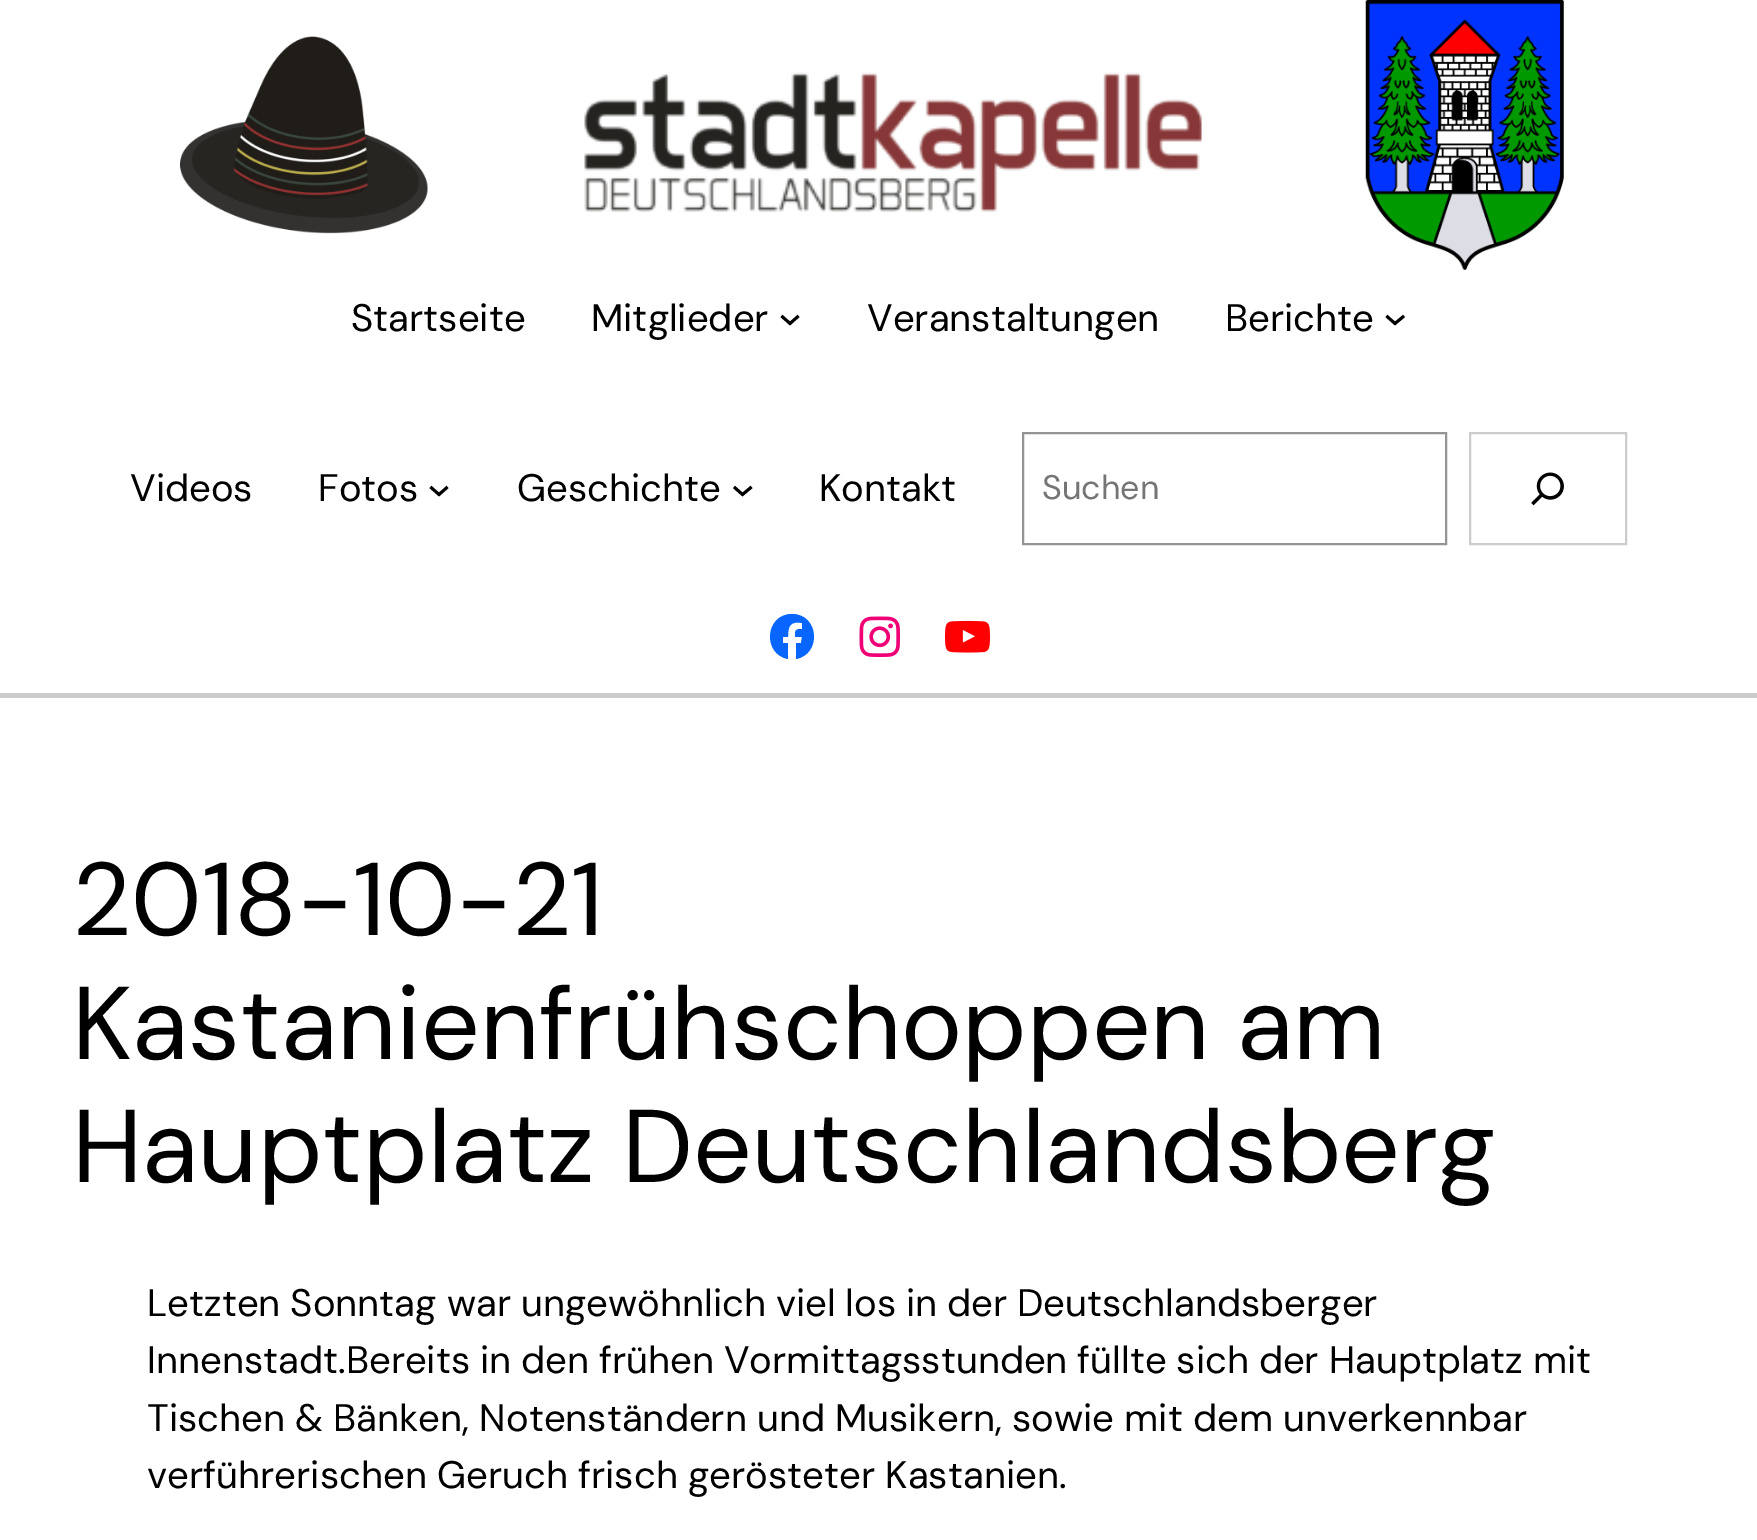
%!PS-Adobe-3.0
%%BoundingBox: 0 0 1757 1540
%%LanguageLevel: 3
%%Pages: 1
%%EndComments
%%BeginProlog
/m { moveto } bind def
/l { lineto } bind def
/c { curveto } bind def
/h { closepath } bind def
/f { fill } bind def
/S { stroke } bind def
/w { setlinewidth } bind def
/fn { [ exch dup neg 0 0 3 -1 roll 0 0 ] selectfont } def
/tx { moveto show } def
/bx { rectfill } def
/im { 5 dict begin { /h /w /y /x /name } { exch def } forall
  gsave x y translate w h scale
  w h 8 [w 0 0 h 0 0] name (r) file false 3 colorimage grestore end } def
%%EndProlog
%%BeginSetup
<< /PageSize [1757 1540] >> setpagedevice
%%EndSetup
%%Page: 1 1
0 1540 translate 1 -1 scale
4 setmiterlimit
1 setgray
0 0 1757 1540 bx
(image0.raw) 180 36 248 198 im
(image1.raw) 584 72 618 140 im
(image2.raw) 1365 0 199 270 im
/DMSans-Regular 38.35 fn
0 setgray
(Startseite) 351 331 tx
(Mitglieder) 591 331 tx
2.9 w
781.5 316 m 790 323.5 l 798.5 316 l S
(Veranstaltungen) 867 331 tx
(Berichte) 1225 331 tx
1386.5 316 m 1395 323.5 l 1404 316 l S
(Videos) 130 501 tx
(Fotos) 318 501 tx
430.5 487 m 439 494.5 l 447.5 487 l S
(Geschichte) 517 501 tx
734 487 m 742.5 494.5 l 751.5 487 l S
(Kontakt) 819 501 tx
0.58 setgray
2 w
1023 433 423 111 rectstroke
/DMSans-Regular 34 fn
0.459 setgray
(Suchen) 1042 499 tx
0.8 setgray
1470 433 156 111 rectstroke
(image3.raw) 1531 472 33 34 im
0.031 0.4 1 setrgbcolor
792 614 m 765 614 762 654 788 659 c 788 643 l 783 643 l 783 637 l 788 637 l 788 626 790 621 802 623 c 802 629 l 795 629 795 630 795 637 c 802 637 l 801 643 l 796 643 l 796 659 l 822 654 819 614 792 614 c h f
(image4.raw) 859 616 41 41 im
(image5.raw) 945 620 45 33 im
0.796 setgray
0 693 1757 5 bx
/DMSans-Regular 103.25 fn
0 setgray
(2018-10-21) 72 935 tx
(Kastanienfrühschoppen am) 72 1059 tx
(Hauptplatz Deutschlandsberg) 72 1182 tx
/DMSans-Regular 38.35 fn
147 1316 m -0.25 0 32 (Letzten Sonntag war ungewöhnlich viel los in der Deutschlandsberger) widthshow
147 1373 m -0.25 0 32 (Innenstadt.Bereits in den frühen Vormittagsstunden füllte sich der Hauptplatz mit) widthshow
147 1431 m -0.1 0 32 (Tischen & Bänken, Notenständern und Musikern, sowie mit dem unverkennbar) widthshow
(verführerischen Geruch frisch gerösteter Kastanien.) 147 1488 tx
showpage
%%EOF
